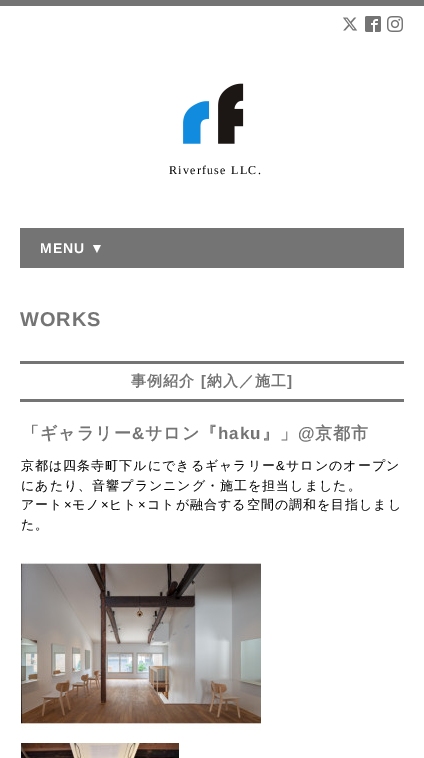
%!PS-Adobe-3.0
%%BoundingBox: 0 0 424 758
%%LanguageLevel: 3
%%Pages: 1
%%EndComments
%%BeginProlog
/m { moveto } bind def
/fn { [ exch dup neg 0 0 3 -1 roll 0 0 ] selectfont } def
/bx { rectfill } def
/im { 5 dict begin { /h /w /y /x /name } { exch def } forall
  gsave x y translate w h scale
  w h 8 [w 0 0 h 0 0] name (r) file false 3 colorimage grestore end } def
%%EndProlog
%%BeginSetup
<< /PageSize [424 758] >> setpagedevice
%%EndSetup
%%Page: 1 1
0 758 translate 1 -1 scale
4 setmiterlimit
1 setgray
0 0 424 758 bx
0.455 setgray
0 0 424 6 bx
(image0.raw) 343 17 15 14 im
(image1.raw) 365 16 16 16 im
(image2.raw) 387 16 16 16 im
(image3.raw) 183 83 61 61 im
/LiberationSerif-Regular 12 fn
0 setgray
169 174 m 1.25 0 (Riverfuse LLC.) ashow
0.455 setgray
20 228 384 40 bx
/LiberationSans-Bold 14 fn
1 setgray
40 253 m 1 0 (MENU ▼) ashow
/LiberationSans-Bold 20 fn
0.455 setgray
20 326 m 1 0 (WORKS) ashow
20 361 384 3 bx
/WenQuanYiZenHei-Bold 15 fn
131 386 m 1 0 (事例紹介) ashow
/LiberationSans-Bold 15 fn
201 386 m 1 0 ([) ashow
/WenQuanYiZenHei-Bold 15 fn
207 386 m 1 0 (納入／施工) ashow
/LiberationSans-Bold 15 fn
287 386 m 1 0 (]) ashow
20 399 384 3 bx
/WenQuanYiZenHei-Bold 17 fn
22 439 m 1 0 (「ギャラリー) ashow
/LiberationSans-Bold 17 fn
132 439 m 1 0 (&) ashow
/WenQuanYiZenHei-Bold 17 fn
145 439 m 1 0 (サロン『) ashow
/LiberationSans-Bold 17 fn
218 439 m 1 0 (haku) ashow
/WenQuanYiZenHei-Bold 17 fn
262 439 m 1 0 (』」) ashow
/LiberationSans-Bold 17 fn
298 439 m 1 0 (@) ashow
/WenQuanYiZenHei-Bold 17 fn
315 439 m 1 0 (京都市) ashow
/WenQuanYiZenHei-Medium 13 fn
0 setgray
21 470 m 1 0 (京都は四条寺町下ルにできるギャラリー) ashow
/LiberationSans-Regular 13 fn
276 470 m 1 0 (&) ashow
/WenQuanYiZenHei-Medium 13 fn
286 470 m 1 0 (サロンのオープン) ashow
21 490 m 1 0 (にあたり、音響プランニング・施工を担当しました。) ashow
21 509 m 1 0 (アート) ashow
/LiberationSans-Regular 13 fn
64 509 m 1 0 (×) ashow
/WenQuanYiZenHei-Medium 13 fn
72 509 m 1 0 (モノ) ashow
/LiberationSans-Regular 13 fn
101 509 m 1 0 (×) ashow
/WenQuanYiZenHei-Medium 13 fn
109 509 m 1 0 (ヒト) ashow
/LiberationSans-Regular 13 fn
138 509 m 1 0 (×) ashow
/WenQuanYiZenHei-Medium 13 fn
147 509 m 1 0 (コトが融合する空間の調和を目指しまし) ashow
21 529 m 1 0 (た。) ashow
(image4.raw) 21 562 240 168 im
(image5.raw) 21 743 158 15 im
showpage
%%EOF
